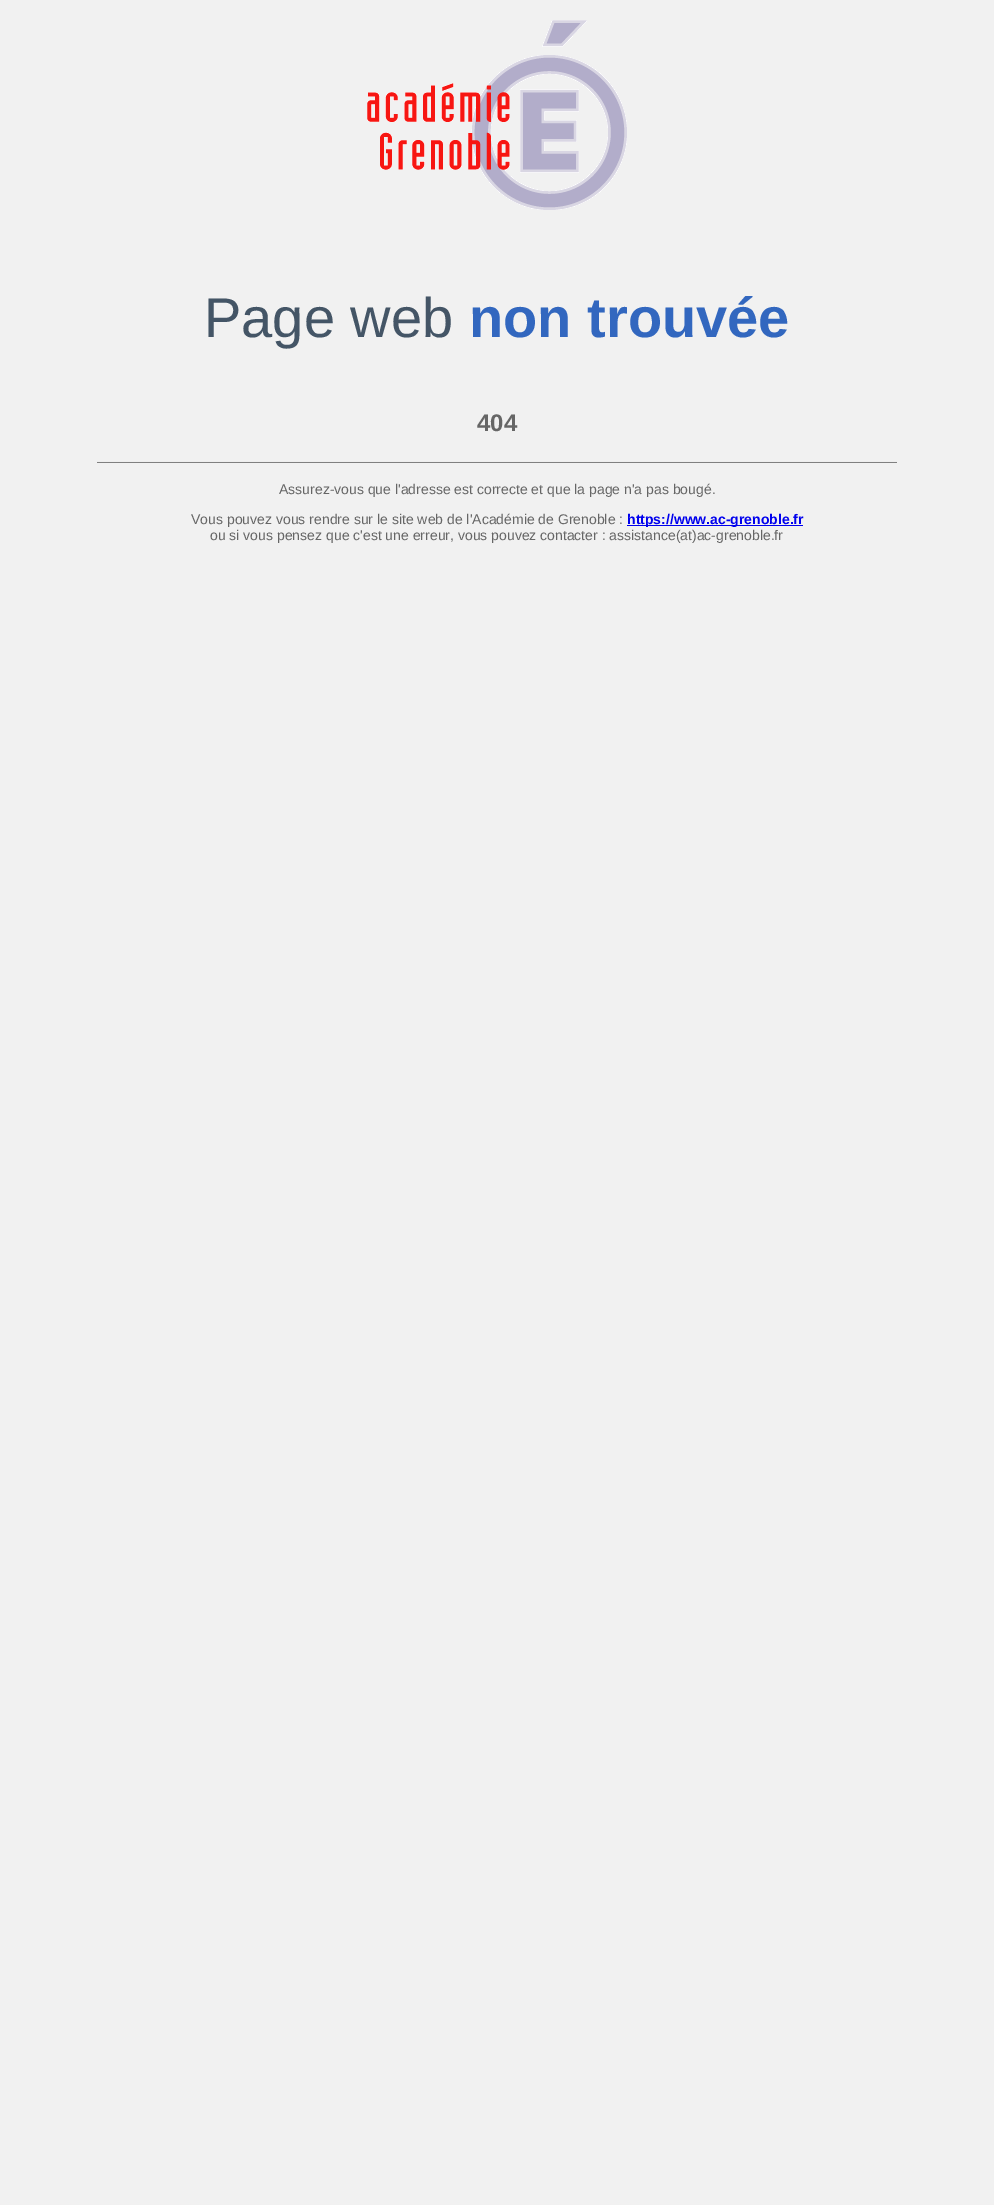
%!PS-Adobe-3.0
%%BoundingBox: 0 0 994 2205
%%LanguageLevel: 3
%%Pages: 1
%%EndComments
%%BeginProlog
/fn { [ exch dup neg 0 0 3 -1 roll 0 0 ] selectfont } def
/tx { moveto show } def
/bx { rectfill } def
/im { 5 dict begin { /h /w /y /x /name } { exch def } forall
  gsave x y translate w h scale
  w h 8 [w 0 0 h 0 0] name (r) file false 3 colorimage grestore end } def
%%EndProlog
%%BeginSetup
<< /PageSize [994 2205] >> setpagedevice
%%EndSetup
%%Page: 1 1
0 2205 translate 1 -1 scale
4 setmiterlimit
0.945 setgray
0 0 994 2205 bx
(image0.raw) 367 20 260 190 im
/LiberationSans-Regular 56 fn
0.267 0.333 0.4 setrgbcolor
(Page web) 204 337 tx
/LiberationSans-Bold 56 fn
0.196 0.404 0.749 setrgbcolor
(non trouvée) 469 337 tx
/LiberationSans-Bold 24 fn
0.4 setgray
(404) 477 431 tx
0.933 setgray
97 461 800 1 bx
0.502 setgray
97 462 800 1 bx
/LiberationSans-Regular 14 fn
0.4 setgray
(Assurez-vous que l'adresse est correcte et que la page n'a pas bougé.) 279 494 tx
(Vous pouvez vous rendre sur le site web de l'Académie de Grenoble :) 191 524 tx
0 0 0.933 setrgbcolor
627 525 176 1 bx
/LiberationSans-Bold 14 fn
(https://www.ac-grenoble.fr) 627 524 tx
/LiberationSans-Regular 14 fn
0.4 setgray
(ou si vous pensez que c'est une erreur, vous pouvez contacter : assistance\(at\)ac-grenoble.fr) 210 540 tx
showpage
%%EOF
